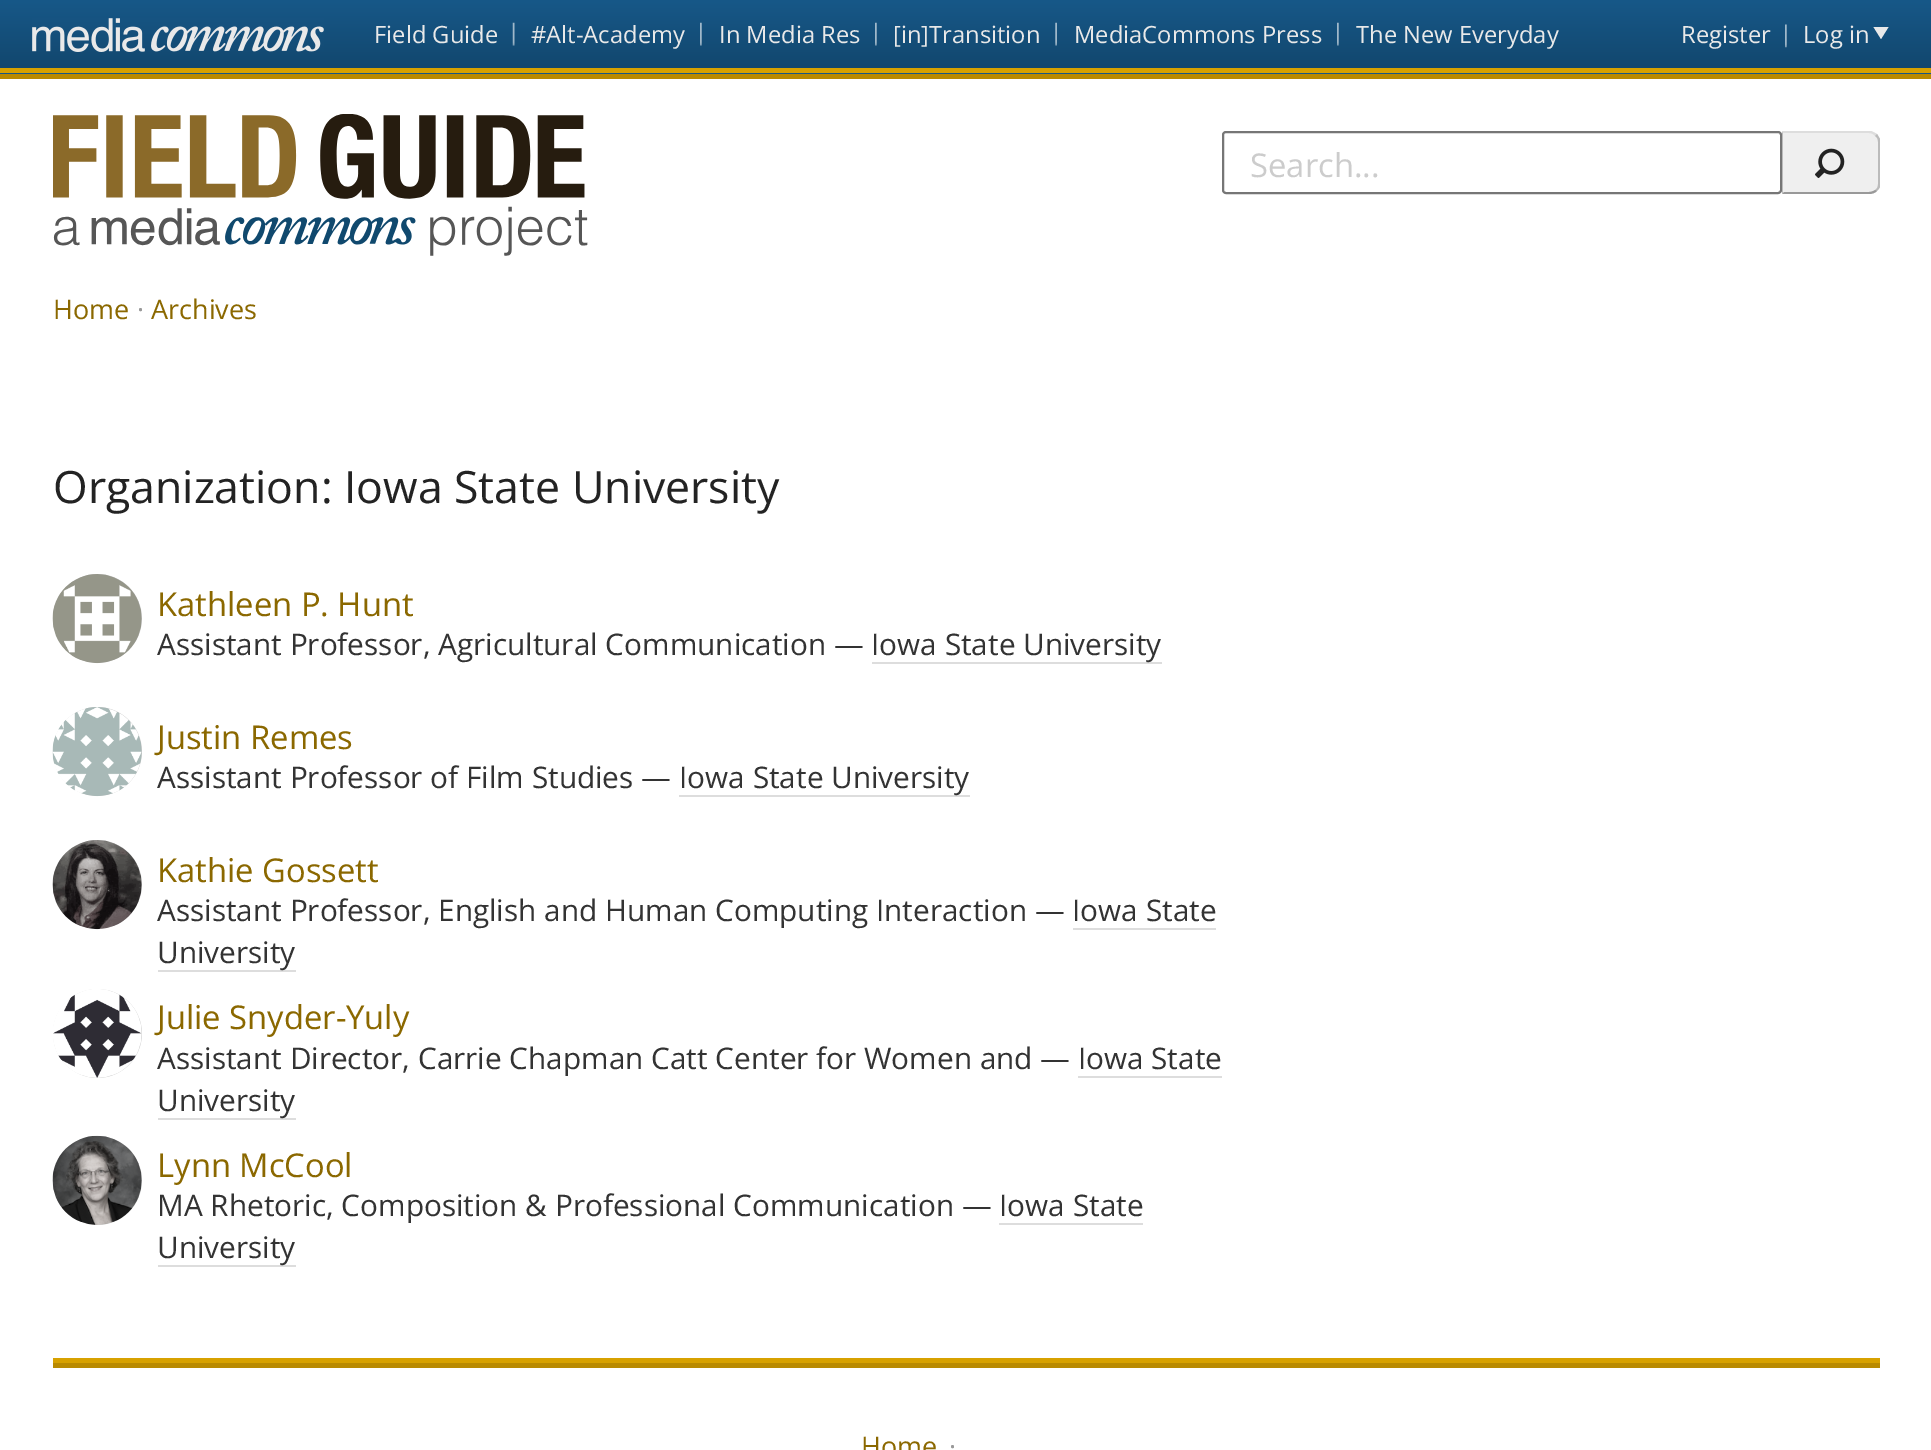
%!PS-Adobe-3.0
%%BoundingBox: 0 0 1931 1450
%%LanguageLevel: 3
%%Pages: 1
%%EndComments
%%BeginProlog
/m { moveto } bind def
/l { lineto } bind def
/c { curveto } bind def
/h { closepath } bind def
/f { fill } bind def
/S { stroke } bind def
/q { gsave } bind def
/Q { grestore } bind def
/w { setlinewidth } bind def
/fn { [ exch dup neg 0 0 3 -1 roll 0 0 ] selectfont } def
/tx { moveto show } def
/bx { rectfill } def
/ci { newpath 0 360 arc closepath } def
/rr { 5 dict begin { /r /h /w /y /x } { exch def } forall
  x r add y moveto x w add y 2 copy h add r arct x w add y h add x 1 index r arct
  x y h add x y r arct x y 2 copy exch w add exch r arct closepath end } def
/im { 5 dict begin { /h /w /y /x /name } { exch def } forall
  gsave x y translate w h scale
  w h 8 [w 0 0 h 0 0] name (r) file false 3 colorimage grestore end } def
%%EndProlog
%%BeginSetup
<< /PageSize [1931 1450] >> setpagedevice
%%EndSetup
%%Page: 1 1
0 1450 translate 1 -1 scale
4 setmiterlimit
1 setgray
0 0 1931 1450 bx
0.725 0.541 0 setrgbcolor
0 74 1931 5 bx
q 0 0 m 1931 0 l 1931 68 l 0 68 l h clip newpath
<< /ShadingType 2 /ColorSpace /DeviceRGB /Coords [966 0 966 68] /Extend [true true] /Function << /FunctionType 2 /Domain [0 1] /C0 [0.09 0.345 0.533] /C1 [0.071 0.278 0.431] /N 1 >> >> shfill Q
q 0 73 m 1931 73 l 1931 74 l 0 74 l h clip newpath
<< /ShadingType 2 /ColorSpace /DeviceRGB /Coords [966 68 966 137] /Extend [true true] /Function << /FunctionType 2 /Domain [0 1] /C0 [0.09 0.345 0.533] /C1 [0.071 0.278 0.431] /N 1 >> >> shfill Q
0.843 0.631 0 setrgbcolor
0 68 1931 5 bx
(image0.raw) 32 18 292 34 im
(image1.raw) 512 22 3 24 im
/OpenSans-Regular 23.75 fn
0.914 setgray
(Field Guide) 374 43 tx
(image2.raw) 700 22 2 24 im
(#Alt-Academy) 531 43 tx
(image2.raw) 875 22 2 24 im
(In Media Res) 719 43 tx
(image3.raw) 1055 22 2 24 im
([in]Transition) 893 43 tx
(image2.raw) 1337 22 2 24 im
(MediaCommons Press) 1074 43 tx
(The New Everyday) 1356 43 tx
(image4.raw) 1785 24 2 24 im
(Register) 1681 43 tx
(Log in) 1803 43 tx
1873.5 27 m 1888.5 27 l 1881 39 l h f
(image5.raw) 53 114 535 142 im
0.463 setgray
2 w
1223 132 558 61 3 rr S
/OpenSans-Regular 32.75 fn
0.8 setgray
(Search...) 1250 177 tx
0.937 setgray
1782 131 m 1869 131 l 1875 131 1880 136 1880 142 c 1880 183 l 1880 189 1875 194 1869 194 c 1782 194 l h f
0.867 setgray
1782 132 m 1782 131 l 1871 131 l 1873 132 1875 133 1877 134 c 1875 136 l 1874 134 1871 133 1869 133 c 1783 133 l h f
0.733 setgray
1880 187 m 1879 189 1878 190 1877 191 c 1875 190 l 1877 189 1878 187 1878 184 c 1878 142 l 1878 139 1877 137 1875 136 c 1877 134 l 1880 139 l h f
0.6 setgray
1877 191 m 1875 193 1872 194 1869 194 c 1782 194 l 1784 192 l 1869 192 l 1871 192 1874 191 1875 190 c h f
0.733 setgray
1783 133 m 1783 192 l 1784 192 l 1782 194 l 1782 132 l h f
(image6.raw) 1815 148 30 30 im
/OpenSans-Regular 27 fn
0.545 0.408 0 setrgbcolor
(Home) 53 319 tx
0.6 setgray
(·) 137 319 tx
0.545 0.408 0 setrgbcolor
(Archives) 151 319 tx
/OpenSans-Regular 44.6 fn
0.137 setgray
(Organization: Iowa State University) 53 503 tx
0.784 setgray
97.5 618.5 44.5 ci f
(image7.raw) 52 574 90 90 im
/OpenSans-Regular 32.75 fn
0.545 0.408 0 setrgbcolor
(Kathleen P. Hunt) 157 616 tx
/OpenSans-Regular 29.75 fn
0.2 setgray
(Assistant Professor, Agricultural Communication —) 157 655 tx
0.867 setgray
872 662 290 2 bx
0.2 setgray
(Iowa State University) 871 655 tx
0.784 setgray
97.5 751.5 44.5 ci f
(image8.raw) 52 707 90 90 im
/OpenSans-Regular 32.75 fn
0.545 0.408 0 setrgbcolor
(Justin Remes) 157 749 tx
/OpenSans-Regular 29.75 fn
0.2 setgray
(Assistant Professor of Film Studies —) 157 788 tx
0.867 setgray
679 795 291 2 bx
0.2 setgray
(Iowa State University) 679 788 tx
0.784 setgray
97.5 884.5 44.5 ci f
(image9.raw) 52 840 90 90 im
/OpenSans-Regular 32.75 fn
0.545 0.408 0 setrgbcolor
(Kathie Gossett) 157 882 tx
/OpenSans-Regular 29.75 fn
0.2 setgray
(Assistant Professor, English and Human Computing Interaction — Iowa State) 157 921 tx
0.867 setgray
158 970 138 2 bx
0.2 setgray
(University) 157 963 tx
0.867 setgray
1073 928 143 2 bx
0.784 setgray
97.5 1033.5 44.5 ci f
(image10.raw) 53 989 89 89 im
/OpenSans-Regular 32.75 fn
0.545 0.408 0 setrgbcolor
(Julie Snyder-Yuly) 157 1029 tx
/OpenSans-Regular 29.75 fn
0.2 setgray
(Assistant Director, Carrie Chapman Catt Center for Women and — Iowa State) 157 1069 tx
0.867 setgray
158 1118 138 2 bx
0.2 setgray
(University) 157 1111 tx
0.867 setgray
1078 1076 144 2 bx
0.784 setgray
97.5 1180.5 44.5 ci f
(image11.raw) 52 1135 90 90 im
/OpenSans-Regular 32.75 fn
0.545 0.408 0 setrgbcolor
(Lynn McCool) 157 1177 tx
/OpenSans-Regular 29.75 fn
0.2 setgray
(MA Rhetoric, Composition & Professional Communication — Iowa State) 157 1216 tx
0.867 setgray
158 1265 138 2 bx
0.2 setgray
(University) 157 1258 tx
0.867 setgray
999 1223 144 2 bx
0.843 0.631 0 setrgbcolor
53 1358 m 53 1363 l 1880 1363 l 1880 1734 l 1880 1358 l h f
0.725 0.541 0 setrgbcolor
53 1363 1827 5 bx
/OpenSans-Regular 27 fn
0.545 0.408 0 setrgbcolor
(Home) 861 1456 tx
0.6 setgray
(·) 949 1456 tx
showpage
%%EOF
